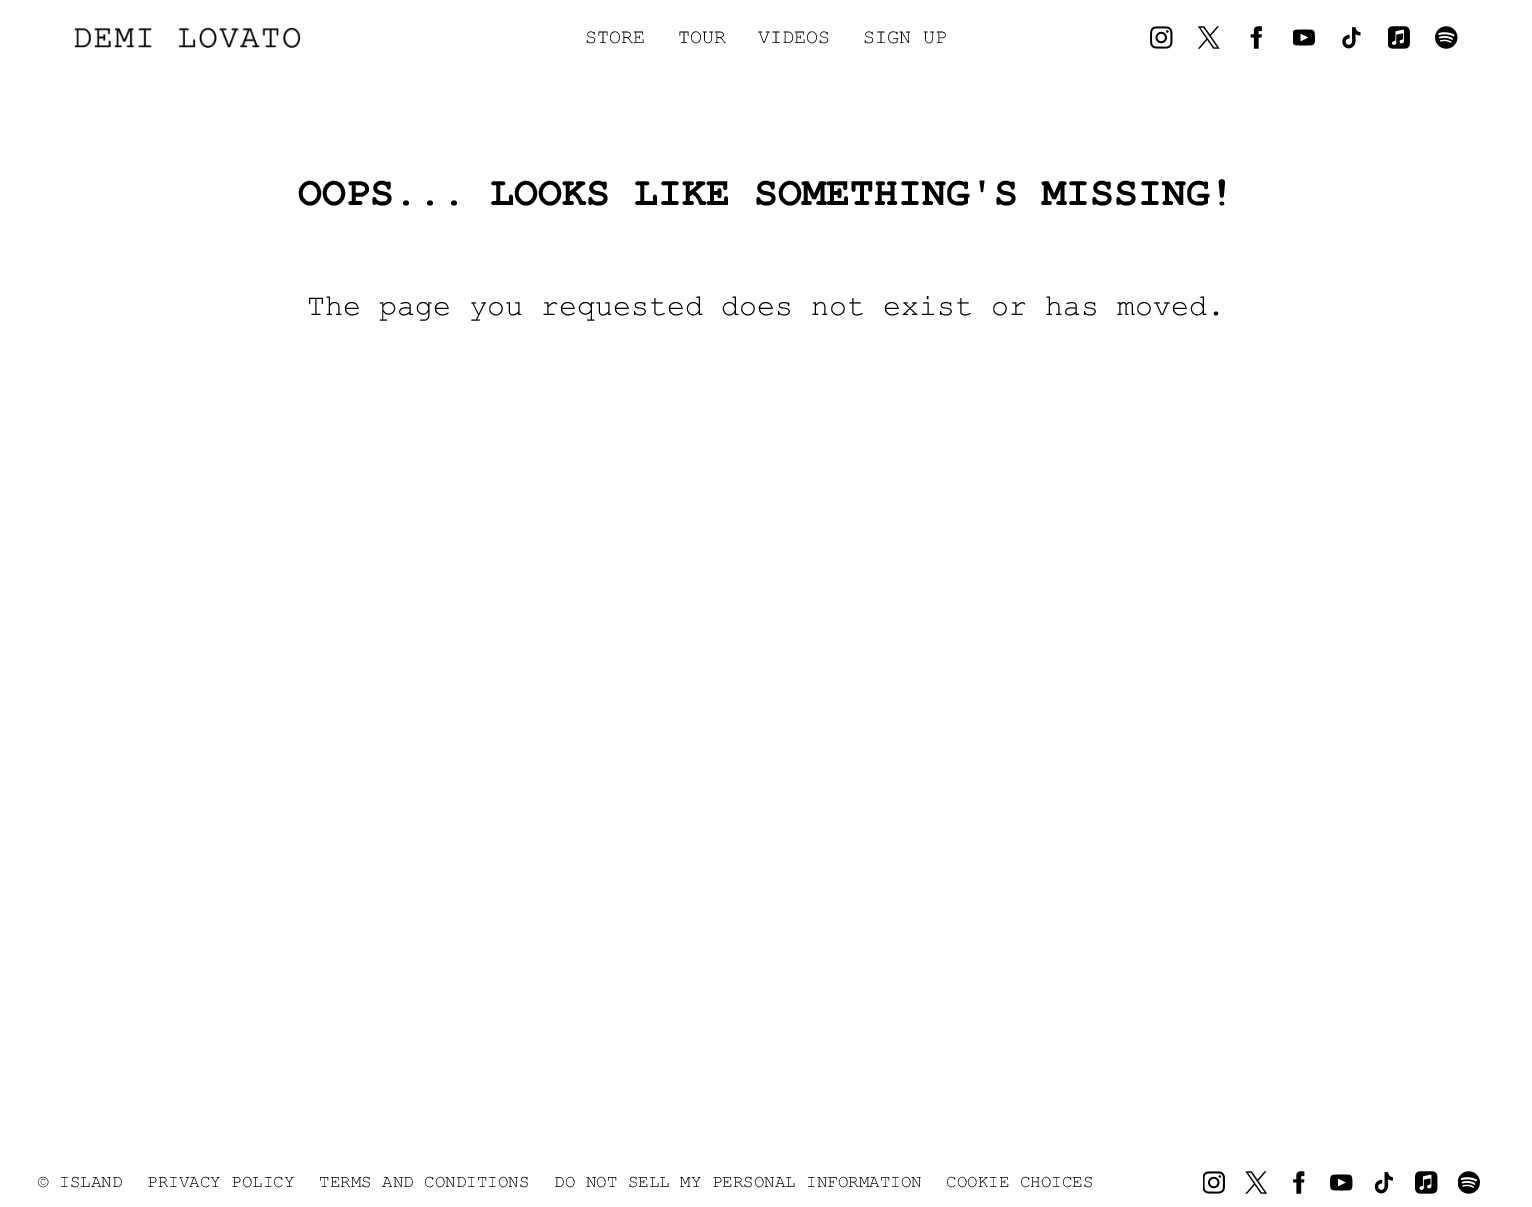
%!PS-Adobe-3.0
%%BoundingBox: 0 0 1532 1207
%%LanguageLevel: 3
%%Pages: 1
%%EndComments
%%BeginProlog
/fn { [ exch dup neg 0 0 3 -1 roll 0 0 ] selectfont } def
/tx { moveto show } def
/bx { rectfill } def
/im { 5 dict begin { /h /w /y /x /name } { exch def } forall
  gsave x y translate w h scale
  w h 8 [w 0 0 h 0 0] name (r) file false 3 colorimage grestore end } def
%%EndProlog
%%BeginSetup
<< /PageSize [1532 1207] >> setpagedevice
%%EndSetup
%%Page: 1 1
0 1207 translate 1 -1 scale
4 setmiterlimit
1 setgray
0 0 1532 1207 bx
(image0.raw) 74 27 227 21 im
/CourierNew-Regular 20 fn
0 setgray
(STORE) 585 43 tx
(TOUR) 678 43 tx
(VIDEOS) 758 43 tx
(SIGN UP) 863 43 tx
(image1.raw) 1150 26 23 23 im
(image2.raw) 1198 26 22 23 im
(image3.raw) 1250 26 12 23 im
(image4.raw) 1293 29 22 17 im
(image5.raw) 1342 27 19 22 im
(image6.raw) 1388 26 22 23 im
(image7.raw) 1435 26 23 23 im
/CourierNew-Bold 40 fn
(OOPS... LOOKS LIKE SOMETHING'S MISSING!) 298 205 tx
/CourierNew-Regular 30 fn
(The page you requested does not exist or has moved.) 307 315 tx
/CourierNew-Regular 17.5 fn
(© ISLAND) 38 1187 tx
(PRIVACY POLICY) 147 1187 tx
(TERMS AND CONDITIONS) 319 1187 tx
(DO NOT SELL MY PERSONAL INFORMATION) 554 1187 tx
(COOKIE CHOICES) 946 1187 tx
(image8.raw) 1203 1171 22 23 im
(image9.raw) 1245 1171 23 23 im
(image10.raw) 1293 1171 12 23 im
(image11.raw) 1330 1174 23 17 im
(image12.raw) 1374 1172 19 22 im
(image13.raw) 1415 1171 23 23 im
(image14.raw) 1458 1171 22 23 im
showpage
%%EOF
